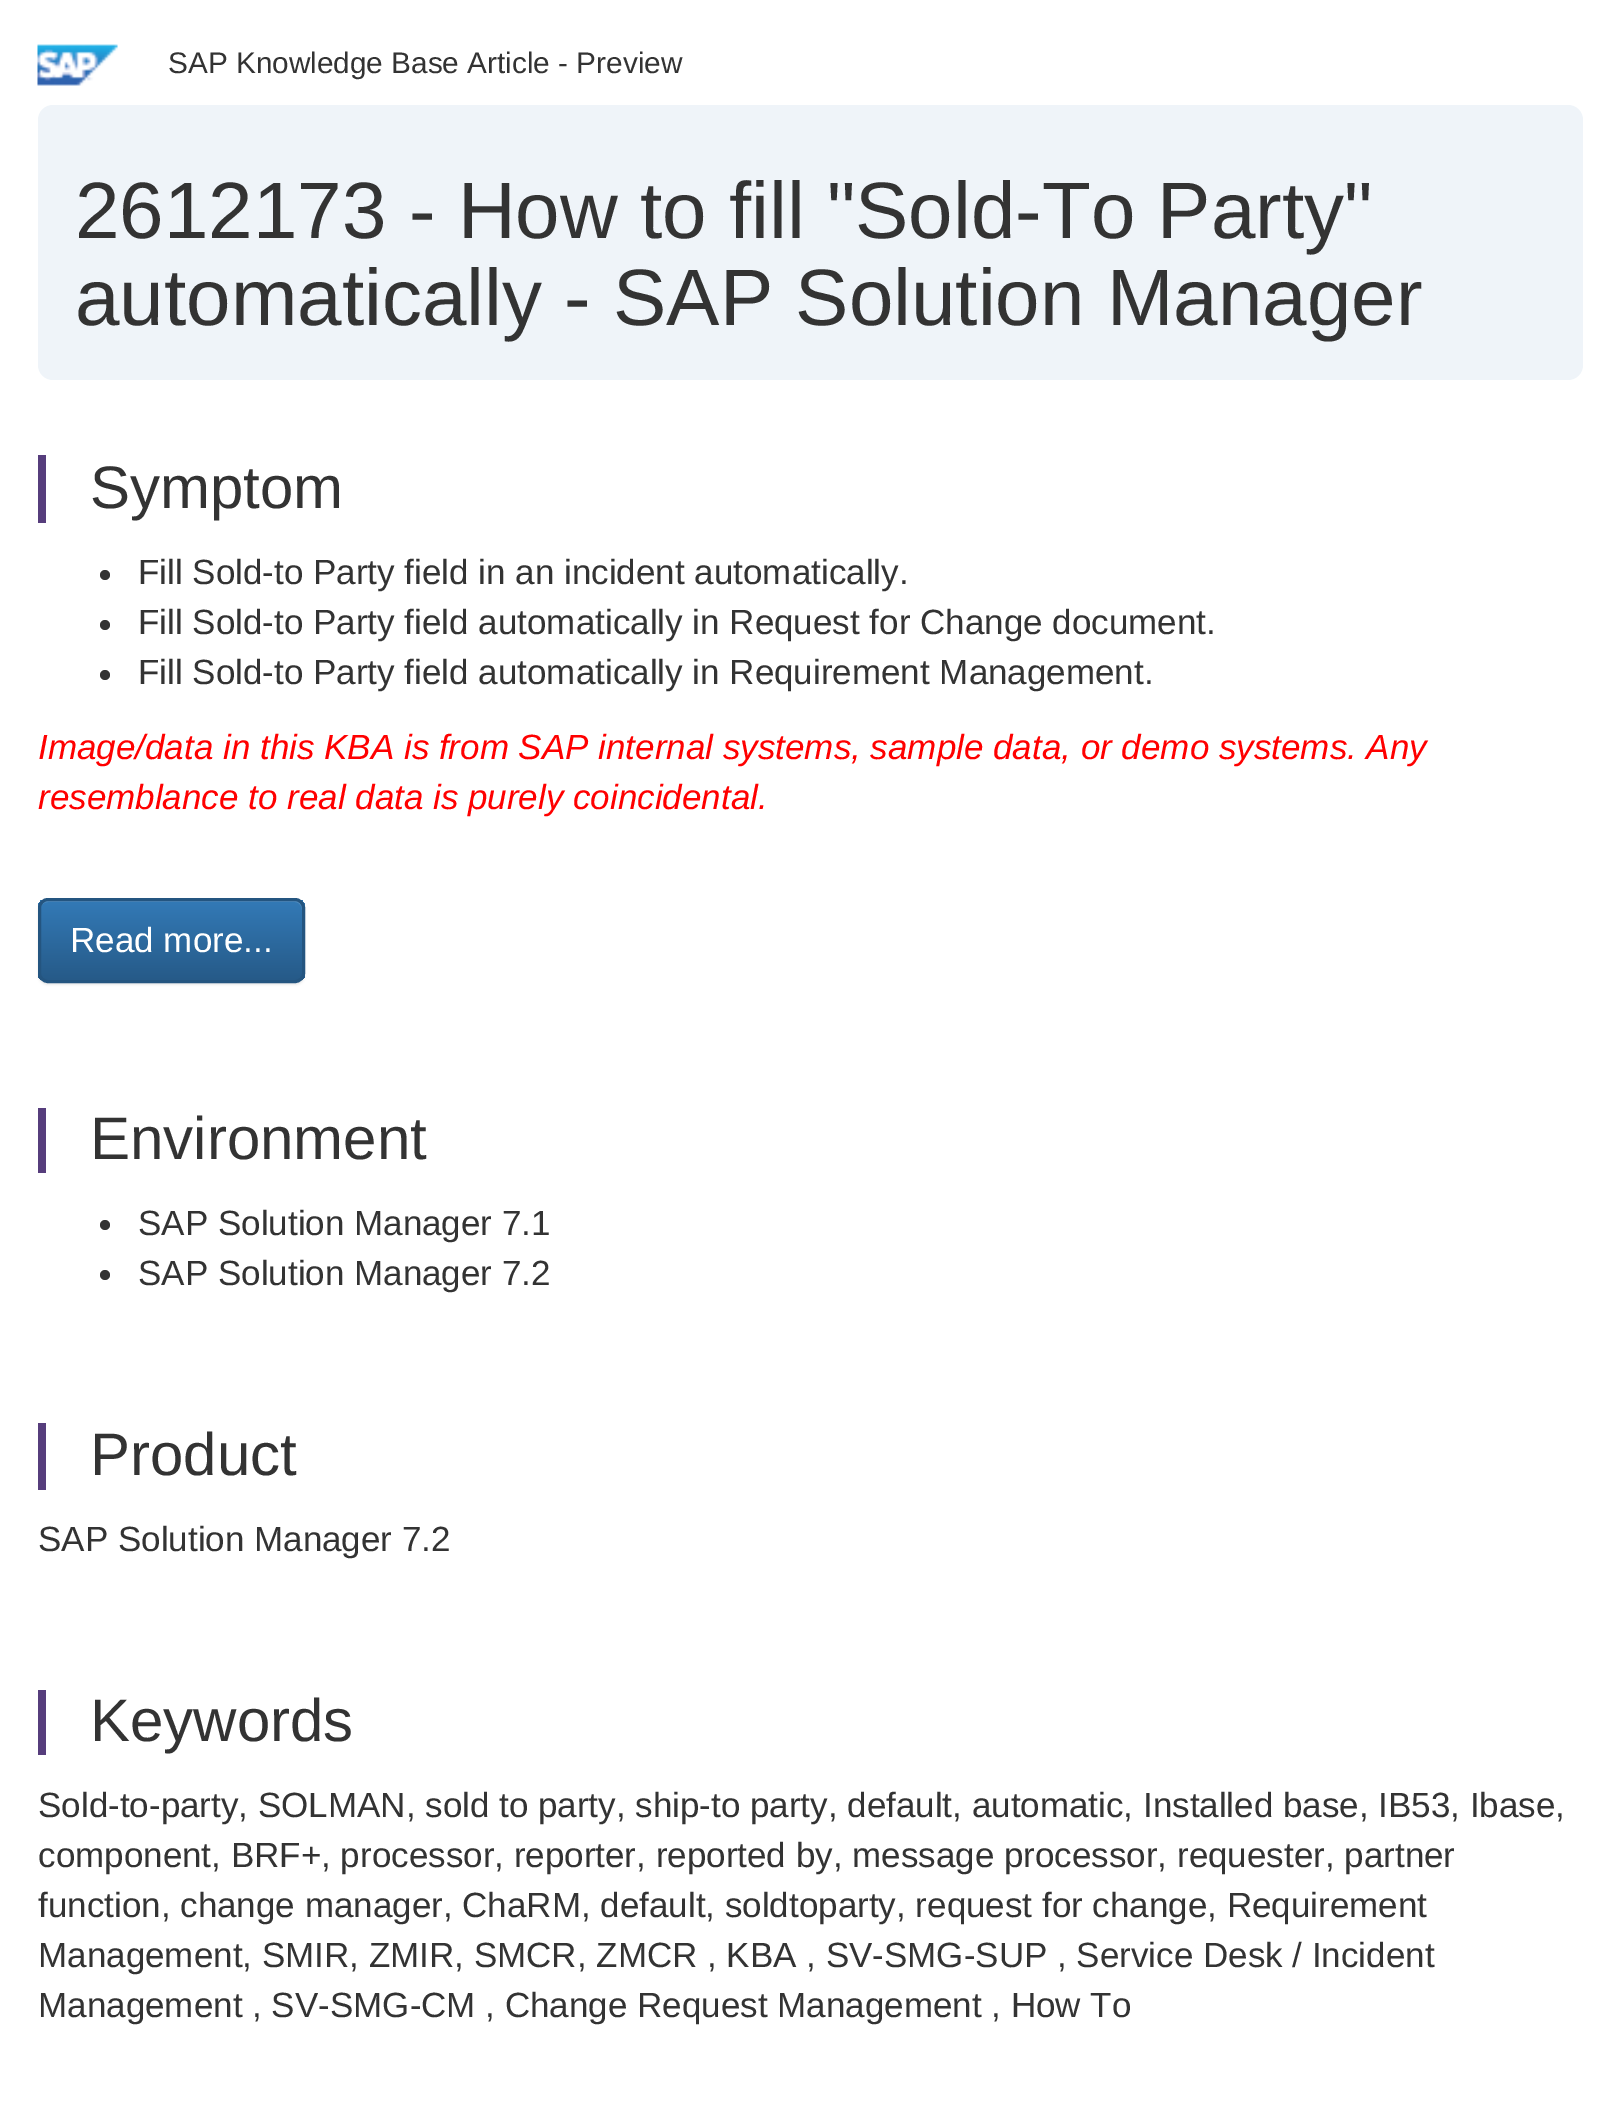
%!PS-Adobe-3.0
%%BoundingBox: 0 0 1620 2126
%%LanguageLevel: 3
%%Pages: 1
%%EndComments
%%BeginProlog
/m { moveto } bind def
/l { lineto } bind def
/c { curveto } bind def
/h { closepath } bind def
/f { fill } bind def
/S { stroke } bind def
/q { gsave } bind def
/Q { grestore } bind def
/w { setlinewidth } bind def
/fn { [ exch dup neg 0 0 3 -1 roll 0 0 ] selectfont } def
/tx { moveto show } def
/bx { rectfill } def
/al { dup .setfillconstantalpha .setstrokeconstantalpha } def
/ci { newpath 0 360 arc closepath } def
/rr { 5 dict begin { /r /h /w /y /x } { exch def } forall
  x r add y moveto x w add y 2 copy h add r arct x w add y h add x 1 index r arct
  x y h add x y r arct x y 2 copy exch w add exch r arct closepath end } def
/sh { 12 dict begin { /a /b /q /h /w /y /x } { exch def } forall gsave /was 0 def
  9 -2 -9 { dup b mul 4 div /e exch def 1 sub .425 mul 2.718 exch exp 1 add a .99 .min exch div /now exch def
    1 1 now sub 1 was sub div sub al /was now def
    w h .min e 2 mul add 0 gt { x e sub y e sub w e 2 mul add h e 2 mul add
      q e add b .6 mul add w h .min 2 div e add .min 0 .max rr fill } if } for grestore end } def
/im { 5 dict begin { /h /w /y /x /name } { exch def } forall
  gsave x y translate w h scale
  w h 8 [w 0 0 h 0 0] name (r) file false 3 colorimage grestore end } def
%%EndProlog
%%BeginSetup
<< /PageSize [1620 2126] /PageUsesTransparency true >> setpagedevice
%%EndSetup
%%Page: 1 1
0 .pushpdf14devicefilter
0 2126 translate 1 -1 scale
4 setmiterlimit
1 setgray
0 0 1620 2126 bx
(image0.raw) 37 44 81 42 im
/LiberationSans-Regular 29.75 fn
0.2 setgray
(SAP Knowledge Base Article - Preview) 168 73 tx
0.937 0.957 0.976 setrgbcolor
38 105 1545 275 15 rr f
/LiberationSans-Regular 80 fn
0.2 setgray
(2612173 - How to fill "Sold-To Party") 75 238 tx
(automatically - SAP Solution Manager) 75 325 tx
0.337 0.239 0.486 setrgbcolor
38 455 8 68 bx
/LiberationSans-Regular 60 fn
0.2 setgray
(Symptom) 90 508 tx
105 575 5 ci f
/LiberationSans-Regular 35 fn
(Fill Sold-to Party field in an incident automatically.) 138 584 tx
105 625 5 ci f
(Fill Sold-to Party field automatically in Request for Change document.) 138 634 tx
105 675 5 ci f
(Fill Sold-to Party field automatically in Requirement Management.) 138 684 tx
/LiberationSans-Italic 35 fn
1 0 0 setrgbcolor
(Image/data in this KBA is from SAP internal systems, sample data, or demo systems. Any) 38 759 tx
(resemblance to real data is purely coincidental.) 38 809 tx
0 setgray
38 900 267 85 10 1 0.07 sh
q
38 898 267 85 10 rr clip newpath
q 38 900 m 305 900 l 305 980 l 38 980 l h clip newpath
<< /ShadingType 2 /ColorSpace /DeviceRGB /Coords [171 900 171 980] /Extend [true true] /Function << /FunctionType 2 /Domain [0 1] /C0 [0.2 0.478 0.718] /C1 [0.149 0.353 0.533] /N 1 >> >> shfill Q
Q
0.15 al
1 setgray
48 902 m 295 902 l 299 902 302 906 302 910 c 302 976 l 303 975 303 973 303 972 c 303 908 l 303 904 299 900 295 900 c 48 900 l 44 900 40 904 40 908 c 40 910 l 40 906 43 902 48 902 c h f
1 al
0.141 0.333 0.502 setrgbcolor
3 w
39.5 899.5 264 82 8.5 rr S
/LiberationSans-Regular 35 fn
1 setgray
(Read more...) 70 952 tx
0.337 0.239 0.486 setrgbcolor
38 1108 8 65 bx
/LiberationSans-Regular 60 fn
0.2 setgray
(Environment) 90 1159 tx
105 1225 5 ci f
/LiberationSans-Regular 35 fn
(SAP Solution Manager 7.1) 138 1235 tx
105 1275 5 ci f
(SAP Solution Manager 7.2) 138 1285 tx
0.337 0.239 0.486 setrgbcolor
38 1423 8 67 bx
/LiberationSans-Regular 60 fn
0.2 setgray
(Product) 90 1475 tx
/LiberationSans-Regular 35 fn
(SAP Solution Manager 7.2) 38 1551 tx
0.337 0.239 0.486 setrgbcolor
38 1690 8 65 bx
/LiberationSans-Regular 60 fn
0.2 setgray
(Keywords) 90 1741 tx
/LiberationSans-Regular 35 fn
(Sold-to-party, SOLMAN, sold to party, ship-to party, default, automatic, Installed base, IB53, Ibase,) 38 1817 tx
(component, BRF+, processor, reporter, reported by, message processor, requester, partner) 38 1867 tx
(function, change manager, ChaRM, default, soldtoparty, request for change, Requirement) 38 1917 tx
(Management, SMIR, ZMIR, SMCR, ZMCR , KBA , SV-SMG-SUP , Service Desk / Incident) 38 1967 tx
(Management , SV-SMG-CM , Change Request Management , How To) 38 2017 tx
.poppdf14devicefilter showpage
%%EOF
